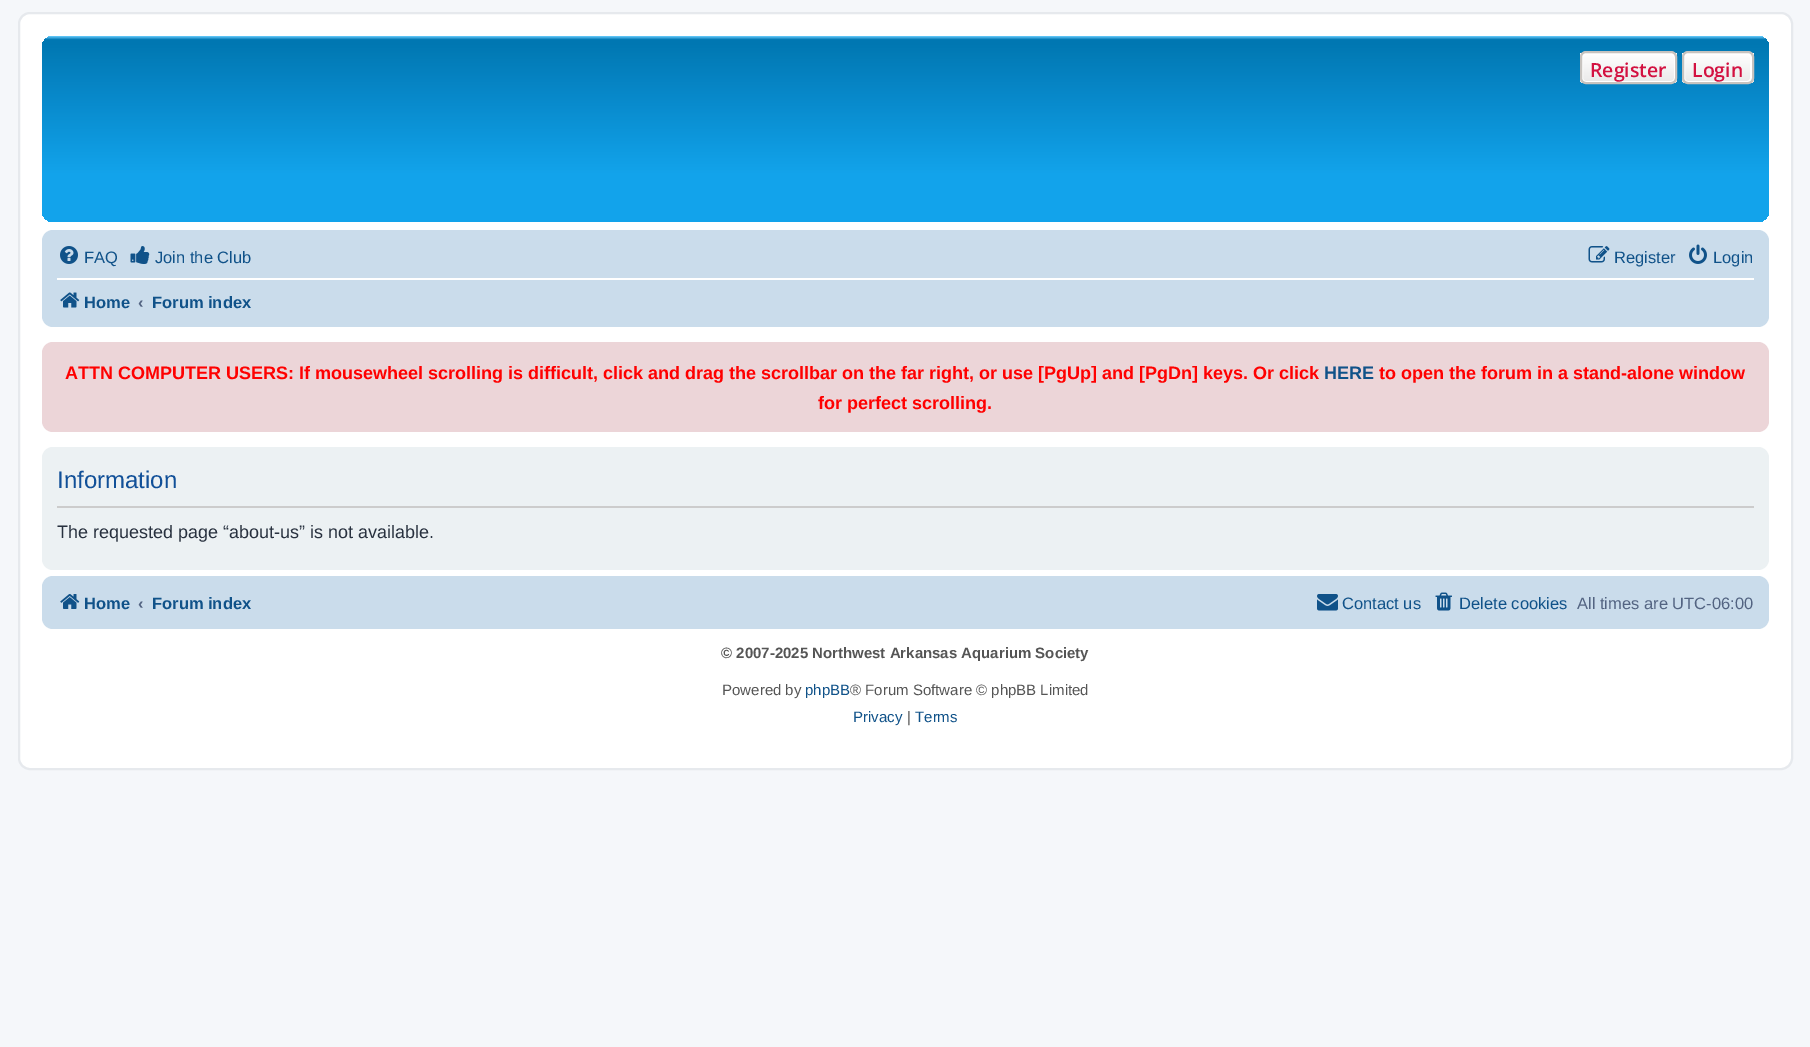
%!PS-Adobe-3.0
%%BoundingBox: 0 0 1810 1047
%%LanguageLevel: 3
%%Pages: 1
%%EndComments
%%BeginProlog
/m { moveto } bind def
/l { lineto } bind def
/h { closepath } bind def
/f { fill } bind def
/S { stroke } bind def
/q { gsave } bind def
/Q { grestore } bind def
/w { setlinewidth } bind def
/fn { [ exch dup neg 0 0 3 -1 roll 0 0 ] selectfont } def
/tx { moveto show } def
/bx { rectfill } def
/rr { 5 dict begin { /r /h /w /y /x } { exch def } forall
  x r add y moveto x w add y 2 copy h add r arct x w add y h add x 1 index r arct
  x y h add x y r arct x y 2 copy exch w add exch r arct closepath end } def
/im { 5 dict begin { /h /w /y /x /name } { exch def } forall
  gsave x y translate w h scale
  w h 8 [w 0 0 h 0 0] name (r) file false 3 colorimage grestore end } def
%%EndProlog
%%BeginSetup
<< /PageSize [1810 1047] >> setpagedevice
%%EndSetup
%%Page: 1 1
0 1047 translate 1 -1 scale
4 setmiterlimit
0.961 0.969 0.98 setrgbcolor
0 0 1810 1047 bx
1 setgray
19 13 1773 756 11 rr q f Q
0.902 0.914 0.929 setrgbcolor
2 w
S
q 42 36 1727 186 11 rr clip newpath
<< /ShadingType 2 /ColorSpace /DeviceRGB /Coords [905 36 905 222] /Extend [true true] /Function << /FunctionType 3 /Domain [0 1] /Functions [<< /FunctionType 2 /Domain [0 1] /C0 [0.416 0.808 1] /C1 [0 0.463 0.694] /N 1 >> << /FunctionType 2 /Domain [0 1] /C0 [0 0.463 0.694] /C1 [0.071 0.639 0.922] /N 1 >> << /FunctionType 2 /Domain [0 1] /C0 [0.071 0.639 0.922] /C1 [0.071 0.639 0.922] /N 1 >>] /Bounds [0.02 0.74] /Encode [0 1 0 1 0 1] >> >> shfill Q
q
1580 51 97 33 6 rr clip newpath
q 1580 53 m 1677 53 l 1677 83 l 1580 83 l h clip newpath
<< /ShadingType 2 /ColorSpace /DeviceRGB /Coords [1628 53 1628 83] /Extend [true true] /Function << /FunctionType 2 /Domain [0 1] /C0 [1 1 1] /C1 [0.914 0.914 0.914] /N 1 >> >> shfill Q
Q
1 setgray
1582 54 93 28 4 rr S
0.78 0.765 0.749 setrgbcolor
1581 52 95 31 5 rr S
/OpenSans-SemiBold 19.5 fn
0.827 0.067 0.255 setrgbcolor
(Register) 1590 77 tx
q
1682 51 72 33 6 rr clip newpath
q 1682 53 m 1754 53 l 1754 83 l 1682 83 l h clip newpath
<< /ShadingType 2 /ColorSpace /DeviceRGB /Coords [1718 53 1718 83] /Extend [true true] /Function << /FunctionType 2 /Domain [0 1] /C0 [1 1 1] /C1 [0.914 0.914 0.914] /N 1 >> >> shfill Q
Q
1 setgray
1684 54 67 28 4 rr S
0.78 0.765 0.749 setrgbcolor
1683 52 70 31 5 rr S
0.827 0.067 0.255 setrgbcolor
(Login) 1692 77 tx
0.792 0.863 0.922 setrgbcolor
42 230 1727 97 11 rr f
(image0.raw) 60 246 18 18 im
/LiberationSans-Regular 16.5 fn
0.063 0.322 0.537 setrgbcolor
(FAQ) 84 263 tx
(image1.raw) 130 246 20 18 im
(Join the Club) 155 263 tx
(image2.raw) 1588 246 22 17 im
(Register) 1614 263 tx
(image3.raw) 1689 244 18 20 im
(Login) 1713 263 tx
1 setgray
57 278 1697 2 bx
(image4.raw) 60 292 20 16 im
/LiberationSans-Bold 16.5 fn
0.063 0.322 0.537 setrgbcolor
(Home) 84 308 tx
0.325 0.392 0.51 setrgbcolor
(‹) 138 308 tx
0.063 0.322 0.537 setrgbcolor
(Forum index) 152 308 tx
0.925 0.835 0.847 setrgbcolor
42 342 1727 90 11 rr f
/LiberationSans-Bold 18 fn
1 0 0 setrgbcolor
(ATTN COMPUTER USERS: If mousewheel scrolling is difficult, click and drag the scrollbar on the far right, or use [PgUp] and [PgDn] keys. Or click) 65 379 tx
0.063 0.322 0.537 setrgbcolor
(HERE) 1324 379 tx
1 0 0 setrgbcolor
(to open the forum in a stand-alone window) 1379 379 tx
(for perfect scrolling.) 818 409 tx
0.925 0.945 0.953 setrgbcolor
42 447 1727 123 11 rr f
0.8 setgray
57 506 1697 2 bx
/LiberationSans-Regular 24 fn
0.067 0.314 0.596 setrgbcolor
(Information) 57 488 tx
/LiberationSans-Regular 18 fn
0.157 0.192 0.247 setrgbcolor
(The requested page “about-us” is not available.) 57 538 tx
0.792 0.863 0.922 setrgbcolor
42 576 1727 53 11 rr f
(image5.raw) 60 594 20 15 im
/LiberationSans-Bold 16.5 fn
0.063 0.322 0.537 setrgbcolor
(Home) 84 609 tx
0.325 0.392 0.51 setrgbcolor
(‹) 138 609 tx
0.063 0.322 0.537 setrgbcolor
(Forum index) 152 609 tx
(image6.raw) 1317 594 21 17 im
/LiberationSans-Regular 16.5 fn
(Contact us) 1342 609 tx
(image7.raw) 1435 592 17 19 im
(Delete cookies) 1459 609 tx
0.325 0.392 0.51 setrgbcolor
(All times are UTC-06:00) 1577 609 tx
/LiberationSans-Bold 15 fn
0.333 setgray
(© 2007-2025 Northwest Arkansas Aquarium Society) 721 658 tx
/LiberationSans-Regular 15 fn
(Powered by) 722 695 tx
0.063 0.322 0.537 setrgbcolor
(phpBB) 805 695 tx
0.333 setgray
(® Forum Software © phpBB Limited) 850 695 tx
0.063 0.322 0.537 setrgbcolor
(Privacy) 853 722 tx
0.333 setgray
(|) 907 722 tx
0.063 0.322 0.537 setrgbcolor
(Terms) 915 722 tx
showpage
%%EOF
